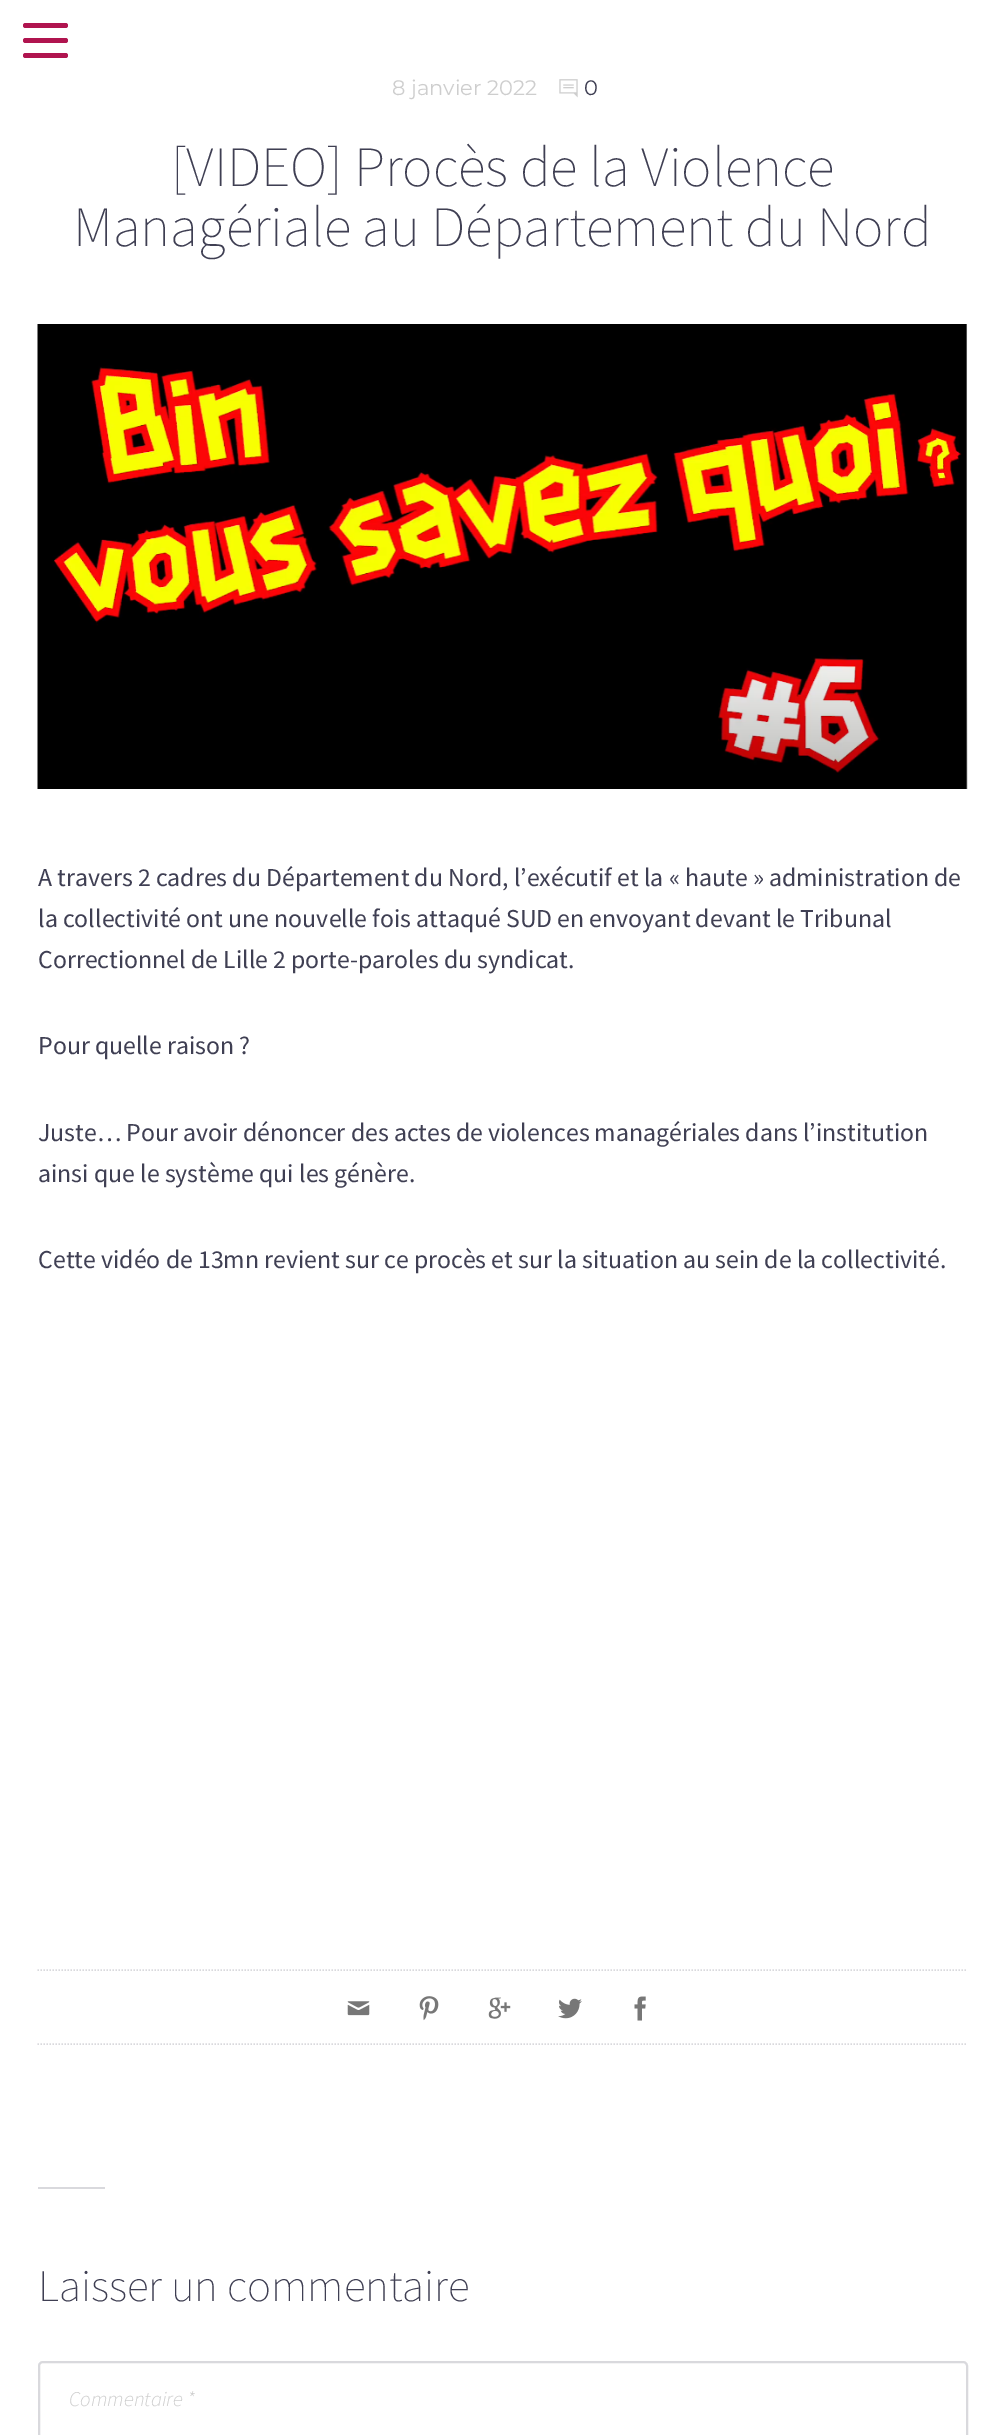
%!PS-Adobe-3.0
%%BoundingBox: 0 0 1005 2435
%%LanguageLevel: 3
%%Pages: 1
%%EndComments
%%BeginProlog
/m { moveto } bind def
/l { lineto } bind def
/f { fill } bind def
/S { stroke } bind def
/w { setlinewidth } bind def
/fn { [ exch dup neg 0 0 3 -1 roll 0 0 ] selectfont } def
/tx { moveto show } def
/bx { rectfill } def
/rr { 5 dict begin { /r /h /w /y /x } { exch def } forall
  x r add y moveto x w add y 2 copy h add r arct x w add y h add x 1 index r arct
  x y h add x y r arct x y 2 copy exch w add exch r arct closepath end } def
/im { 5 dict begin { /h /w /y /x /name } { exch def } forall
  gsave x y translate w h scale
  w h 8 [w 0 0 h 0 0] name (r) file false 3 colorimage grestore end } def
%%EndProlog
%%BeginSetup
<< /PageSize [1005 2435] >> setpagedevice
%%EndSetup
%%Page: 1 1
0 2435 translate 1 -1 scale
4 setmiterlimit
1 setgray
0 0 1005 2435 bx
0.69 0.078 0.31 setrgbcolor
23 38 45 5 2.5 rr f
23 23 45 5 2.5 rr f
23 53 45 5 2.5 rr f
/Montserrat-Thin 21 fn
0.808 setgray
(8 janvier 2022) 392 95 tx
(image0.raw) 559 79 19 19 im
0.247 0.247 0.325 setrgbcolor
(0) 584 95 tx
/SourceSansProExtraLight-ExtraLight 57 fn
([VIDEO] Procès de la Violence) 171 186 tx
(Managériale au Département du Nord) 73 246 tx
(image1.raw) 37 324 931 465 im
/SourceSansPro-Regular 25.8 fn
(A travers 2 cadres du Département du Nord, l’exécutif et la « haute » administration de) 38 886 tx
(la collectivité ont une nouvelle fois attaqué SUD en envoyant devant le Tribunal) 38 927 tx
(Correctionnel de Lille 2 porte-paroles du syndicat.) 38 968 tx
(Pour quelle raison ?) 38 1054 tx
(Juste… Pour avoir dénoncer des actes de violences managériales dans l’institution) 38 1141 tx
(ainsi que le système qui les génère.) 38 1182 tx
(Cette vidéo de 13mn revient sur ce procès et sur la situation au sein de la collectivité.) 38 1268 tx
0.851 0.851 0.867 setrgbcolor
1.5 w
[1.5 1.5] 0 setdash
37.5 1970 m 967.5 1970 l S
(image2.raw) 347 2001 23 15 im
(image3.raw) 419 1996 20 25 im
(image4.raw) 488 1997 23 22 im
(image5.raw) 558 1998 24 21 im
(image6.raw) 634 1996 12 25 im
37.5 2044 m 967.5 2044 l S
38 2187 67 2 bx
/SourceSansProExtraLight-ExtraLight 45 fn
0.247 0.247 0.325 setrgbcolor
(Laisser un commentaire) 38 2301 tx
0.851 0.851 0.867 setrgbcolor
2 w
[] 0 setdash
39 2362 928 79 4 rr S
/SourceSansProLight-LightItalic 21 fn
0.808 setgray
(Commentaire *) 69 2406 tx
showpage
%%EOF
